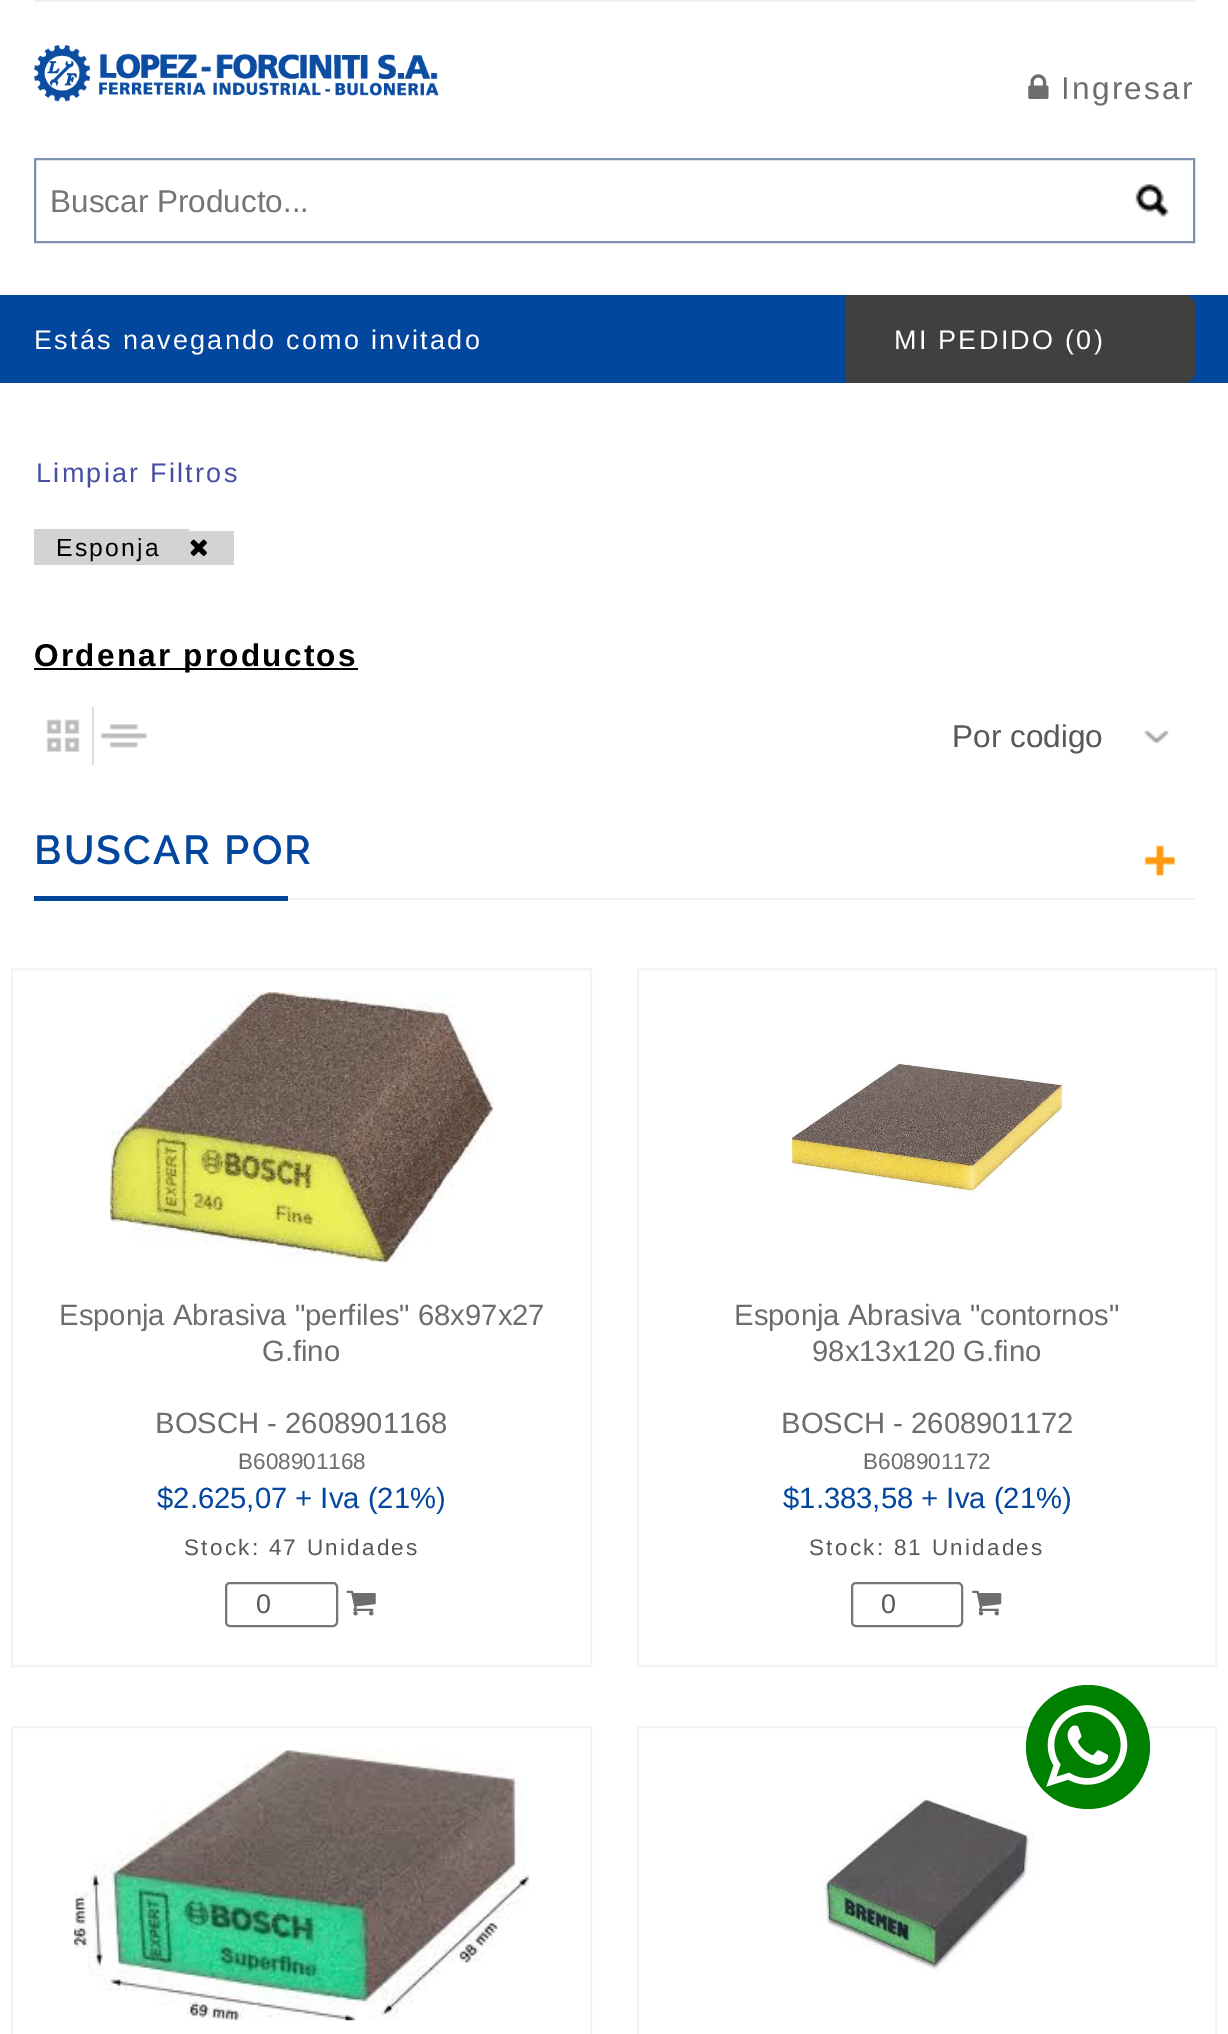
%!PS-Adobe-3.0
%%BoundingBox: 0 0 1228 2034
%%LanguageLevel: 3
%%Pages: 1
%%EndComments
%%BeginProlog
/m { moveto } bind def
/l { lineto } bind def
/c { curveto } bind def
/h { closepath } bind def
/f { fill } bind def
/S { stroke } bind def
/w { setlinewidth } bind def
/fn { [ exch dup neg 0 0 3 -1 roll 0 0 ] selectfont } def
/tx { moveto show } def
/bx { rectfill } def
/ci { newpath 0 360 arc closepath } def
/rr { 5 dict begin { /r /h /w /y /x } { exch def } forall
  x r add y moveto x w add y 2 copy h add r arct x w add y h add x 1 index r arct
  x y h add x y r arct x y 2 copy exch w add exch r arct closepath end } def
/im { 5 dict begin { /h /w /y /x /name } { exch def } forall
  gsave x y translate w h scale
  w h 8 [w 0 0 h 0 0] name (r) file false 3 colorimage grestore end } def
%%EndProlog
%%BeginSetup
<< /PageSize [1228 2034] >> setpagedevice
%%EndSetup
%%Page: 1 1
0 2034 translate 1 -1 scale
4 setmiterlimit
1 setgray
0 0 1228 2034 bx
0.945 setgray
34 0 1161 2 bx
(image0.raw) 33 45 406 57 im
(image1.raw) 1028 74 21 25 im
/LiberationSans-Regular 31.5 fn
0.427 setgray
1061 99 m 2.25 0 (Ingresar) ashow
0.486 0.569 0.678 setrgbcolor
2 w
35 159 1159 83 rectstroke
0.459 setgray
(Buscar Producto...) 50 212 tx
(image2.raw) 1135 184 34 33 im
0.008 0.275 0.62 setrgbcolor
0 295 1228 88 bx
/LiberationSans-Regular 27 fn
1 setgray
34 349 m 2.25 0 (Estás navegando como invitado) ashow
0.251 0.251 0.243 setrgbcolor
846 295 m 1184 295 l 1190 295 1195 300 1195 306 c 1195 372 l 1195 378 1190 383 1184 383 c 846 383 l h f
1 setgray
894 349 m 2.25 0 (MI PEDIDO \(0) ashow
1094 349 m 2.25 0 (\)) ashow
0.278 0.31 0.635 setrgbcolor
36 482 m 2.25 0 (Limpiar Filtros) ashow
0.827 setgray
34 529 155 36 bx
189 531 45 34 bx
/LiberationSans-Regular 24.75 fn
0 setgray
56 556 m 2.25 0 (Esponja) ashow
(image3.raw) 190 539 17 17 im
34 668 324 2 bx
/LiberationSans-Bold 31.5 fn
34 666 m 2.25 0 (Ordenar productos) ashow
0.871 setgray
92 707 2 58 bx
(image4.raw) 46 719 34 33 im
(image5.raw) 100 724 47 24 im
(image6.raw) 1144 730 25 14 im
/LiberationSans-Regular 31.5 fn
0.345 setgray
(Por codigo) 952 747 tx
0.953 setgray
288 898 907 2 bx
/Raleway-SemiBold 40.5 fn
0.008 0.275 0.62 setrgbcolor
34 864 m 2.25 0 (BUSCAR POR) ashow
34 896 254 5 bx
(image7.raw) 1144 845 32 31 im
0.953 setgray
12 969 579 697 rectstroke
(image8.raw) 110 992 383 271 im
/LiberationSans-Regular 29.25 fn
0.427 setgray
(Esponja Abrasiva "perfiles" 68x97x27) 59 1325 tx
(G.fino) 262 1361 tx
(BOSCH - 2608901168) 155 1433 tx
/LiberationSans-Regular 22.5 fn
(B608901168) 238 1469 tx
/LiberationSans-Regular 29.25 fn
0.008 0.275 0.62 setrgbcolor
($2.625,07 + Iva \(21%\)) 157 1508 tx
/LiberationSans-Regular 22.5 fn
0.345 setgray
184 1555 m 2.25 0 (Stock: 47 Unidades) ashow
0.463 setgray
226 1583 111 43 4 rr S
/LiberationSans-Regular 27 fn
0.345 setgray
(0) 256 1613 tx
(image9.raw) 346 1590 30 26 im
0.953 setgray
638 969 578 697 rectstroke
(image10.raw) 792 1061 270 134 im
/LiberationSans-Regular 29.25 fn
0.427 setgray
(Esponja Abrasiva "contornos") 734 1325 tx
(98x13x120 G.fino) 812 1361 tx
(BOSCH - 2608901172) 781 1433 tx
/LiberationSans-Regular 22.5 fn
(B608901172) 863 1469 tx
/LiberationSans-Regular 29.25 fn
0.008 0.275 0.62 setrgbcolor
($1.383,58 + Iva \(21%\)) 783 1508 tx
/LiberationSans-Regular 22.5 fn
0.345 setgray
809 1555 m 2.25 0 (Stock: 81 Unidades) ashow
0.463 setgray
852 1583 110 43 4 rr S
/LiberationSans-Regular 27 fn
0.345 setgray
(0) 881 1613 tx
(image11.raw) 972 1590 30 26 im
0.953 setgray
12 1727 579 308 rectstroke
(image12.raw) 74 1750 455 271 im
638 1727 578 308 rectstroke
(image13.raw) 817 1795 217 178 im
0 0.502 0 setrgbcolor
1088 1747 62 ci f
(image14.raw) 1046 1705 82 82 im
showpage
%%EOF
